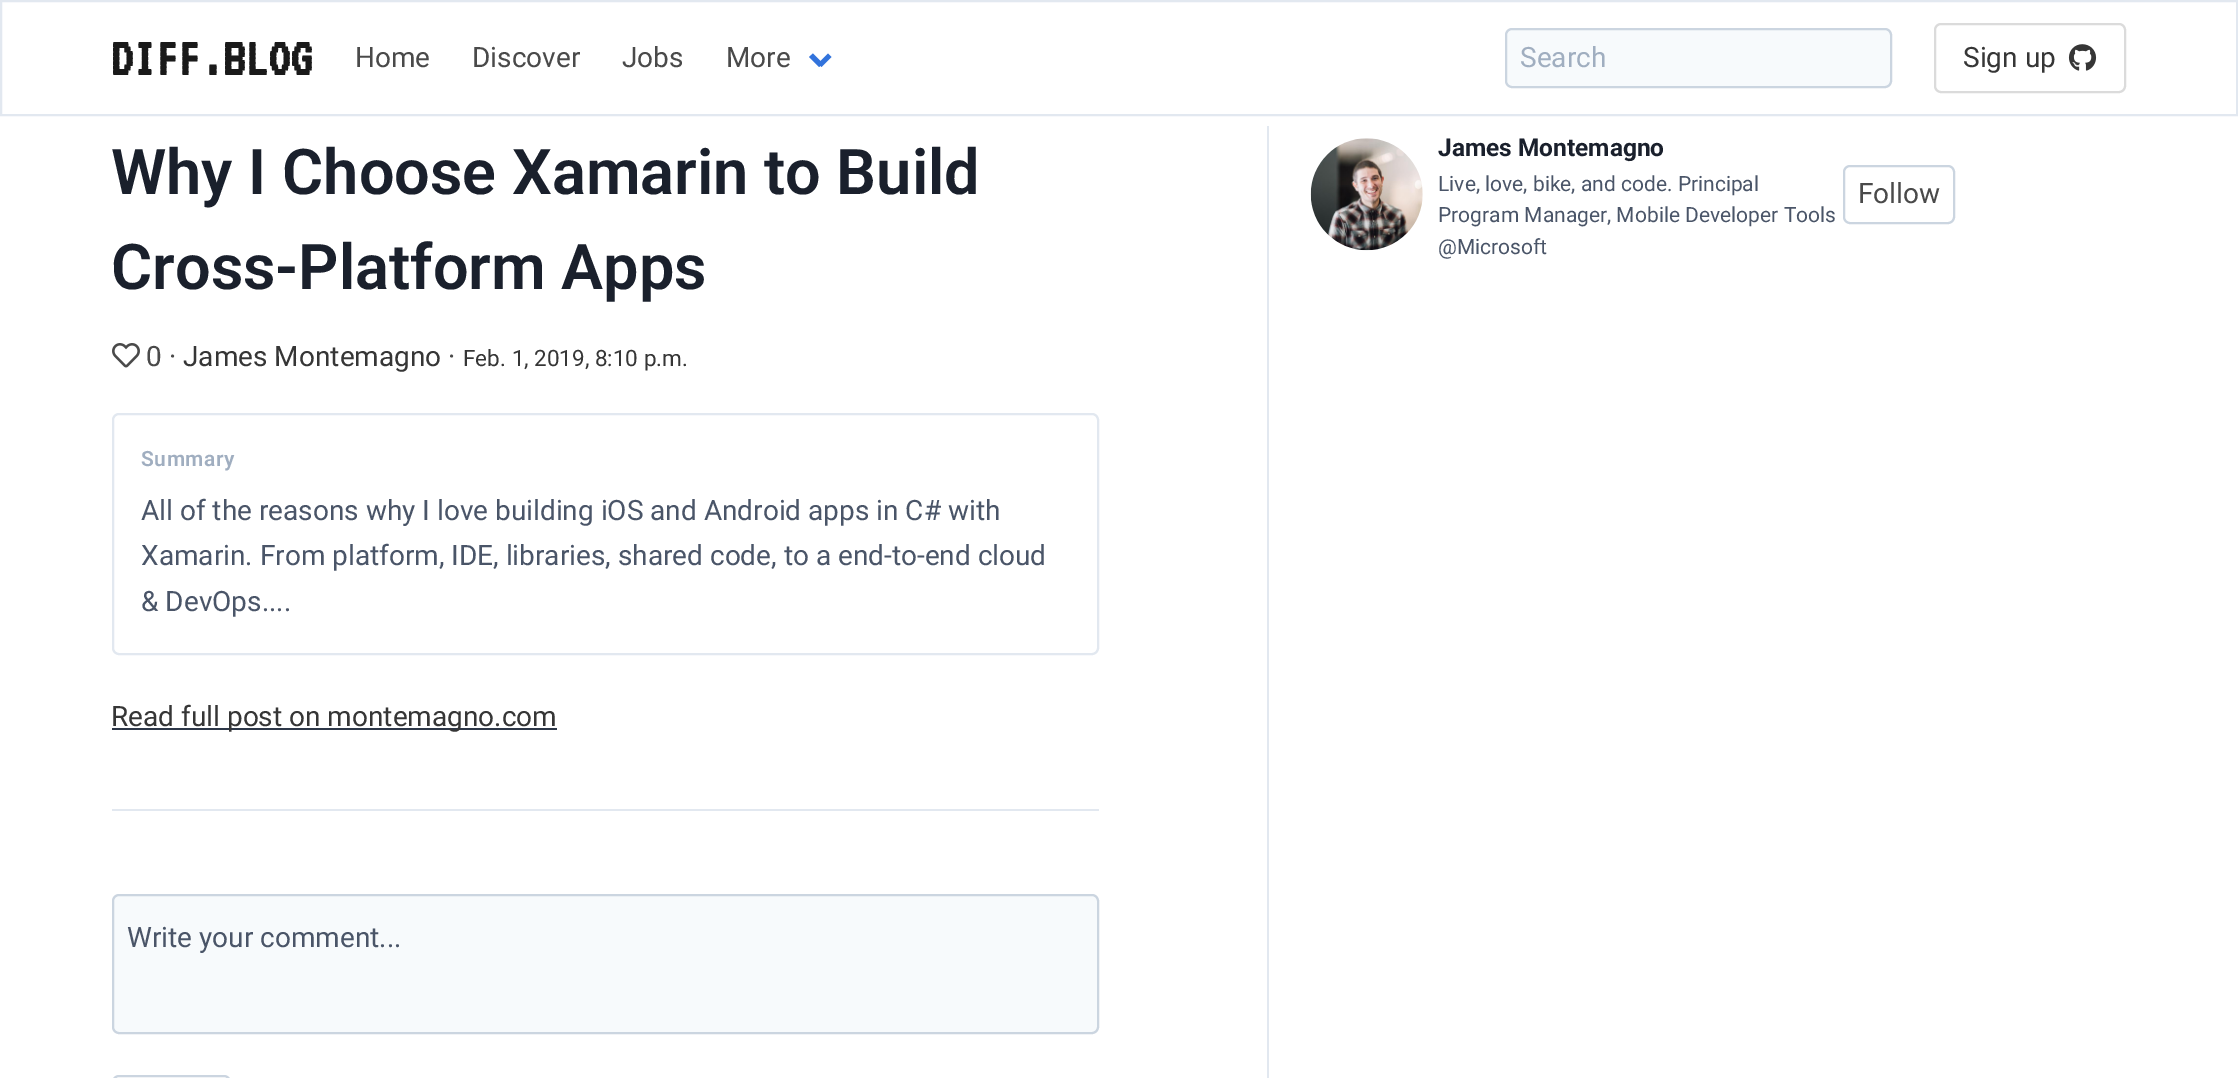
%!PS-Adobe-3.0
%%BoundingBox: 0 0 2238 1078
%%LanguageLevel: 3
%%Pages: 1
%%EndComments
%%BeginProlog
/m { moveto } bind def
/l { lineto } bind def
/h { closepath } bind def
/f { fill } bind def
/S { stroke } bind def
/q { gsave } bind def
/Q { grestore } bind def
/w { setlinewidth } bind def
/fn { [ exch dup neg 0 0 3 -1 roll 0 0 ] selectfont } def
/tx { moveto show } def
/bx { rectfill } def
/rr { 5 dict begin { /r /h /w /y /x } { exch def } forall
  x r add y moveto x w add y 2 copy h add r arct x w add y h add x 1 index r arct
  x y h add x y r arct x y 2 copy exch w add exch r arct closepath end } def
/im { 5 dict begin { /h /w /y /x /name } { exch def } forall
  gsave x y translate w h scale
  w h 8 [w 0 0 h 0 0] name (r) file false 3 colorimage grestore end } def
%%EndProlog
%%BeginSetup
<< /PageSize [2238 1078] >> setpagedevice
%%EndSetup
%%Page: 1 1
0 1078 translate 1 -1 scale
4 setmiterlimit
1 setgray
0 0 2238 1078 bx
0.886 0.91 0.941 setrgbcolor
2 w
1 1 2236 114 rectstroke
/VT323-Bold 56 fn
0.102 setgray
(DIFF.BLOG) 111 75 tx
/Roboto-Regular 28 fn
0.29 setgray
(Home) 355 67 tx
(Discover) 472 67 tx
(Jobs) 622 67 tx
(More) 726 67 tx
0.196 0.451 0.863 setrgbcolor
818 63.5 m 828 53.5 l 831.5 57 l 821.5 67 l h f
809 57 m 813 53.5 l 823 63.5 l 819 67 l h f
0.969 0.98 0.988 setrgbcolor
1506 29 385 58 6 rr q f Q
0.796 0.835 0.878 setrgbcolor
S
0.627 0.682 0.753 setrgbcolor
(Search) 1520 67 tx
0.859 setgray
1935 24 190 68 6 rr S
0.212 setgray
(Sign up) 1963 67 tx
(image0.raw) 2068 44 29 27 im
/Roboto-SemiBold 63 fn
0.102 0.125 0.173 setrgbcolor
(Why I Choose Xamarin to Build) 111 194 tx
(Cross-Platform Apps) 111 289 tx
(image1.raw) 112 343 28 25 im
/Roboto-Regular 28 fn
0.29 setgray
(0 ·) 146 366 tx
0.212 setgray
(James Montemagno) 183 366 tx
0.29 setgray
(·) 448 366 tx
/Roboto-Regular 22.5 fn
0.212 setgray
(Feb. 1, 2019, 8:10 p.m.) 463 366 tx
0.886 0.91 0.941 setrgbcolor
113 414 985 240 6 rr S
/Roboto-SemiBold 21 fn
0.627 0.682 0.753 setrgbcolor
141 466 m 0.5 0 (Summary) ashow
/Roboto-Regular 28 fn
0.29 0.333 0.408 setrgbcolor
(All of the reasons why I love building iOS and Android apps in C# with) 141 520 tx
(Xamarin. From platform, IDE, libraries, shared code, to a end-to-end cloud) 141 565 tx
(& DevOps....) 141 611 tx
0.886 0.91 0.941 setrgbcolor
112 809 987 2 bx
0.176 0.216 0.282 setrgbcolor
112 728 445 2 bx
0.212 setgray
(Read full post on montemagno.com) 111 726 tx
0.969 0.98 0.988 setrgbcolor
113 895 985 138 6 rr q f Q
0.796 0.835 0.878 setrgbcolor
S
0.29 0.333 0.408 setrgbcolor
(Write your comment...) 127 947 tx
0.796 0.835 0.878 setrgbcolor
113 1076 117 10 6 rr S
0.886 0.91 0.941 setrgbcolor
1267 126 2 952 bx
(image2.raw) 1310 138 113 113 im
/Roboto-Bold 24.5 fn
0.102 0.125 0.173 setrgbcolor
(James Montemagno) 1438 156 tx
/Roboto-Regular 21 fn
0.29 0.333 0.408 setrgbcolor
(Live, love, bike, and code. Principal) 1438 191 tx
(Program Manager, Mobile Developer Tools) 1438 222 tx
(@Microsoft) 1438 254 tx
0.796 0.835 0.878 setrgbcolor
1844 166 110 57 6 rr S
/Roboto-Regular 28 fn
0.29 setgray
(Follow) 1858 203 tx
showpage
%%EOF
